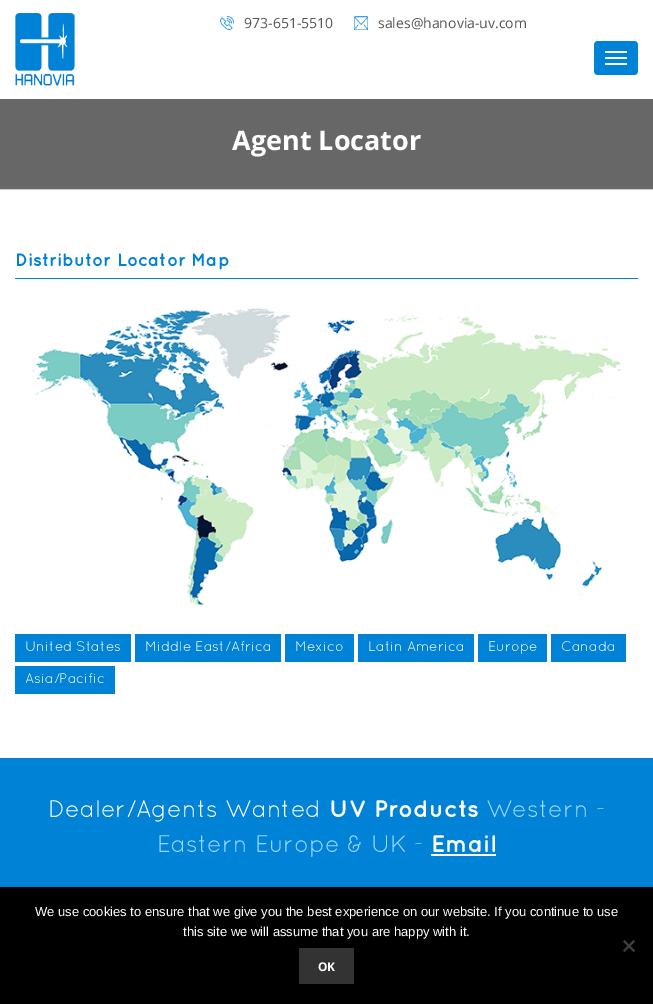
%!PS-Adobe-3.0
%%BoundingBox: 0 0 653 1004
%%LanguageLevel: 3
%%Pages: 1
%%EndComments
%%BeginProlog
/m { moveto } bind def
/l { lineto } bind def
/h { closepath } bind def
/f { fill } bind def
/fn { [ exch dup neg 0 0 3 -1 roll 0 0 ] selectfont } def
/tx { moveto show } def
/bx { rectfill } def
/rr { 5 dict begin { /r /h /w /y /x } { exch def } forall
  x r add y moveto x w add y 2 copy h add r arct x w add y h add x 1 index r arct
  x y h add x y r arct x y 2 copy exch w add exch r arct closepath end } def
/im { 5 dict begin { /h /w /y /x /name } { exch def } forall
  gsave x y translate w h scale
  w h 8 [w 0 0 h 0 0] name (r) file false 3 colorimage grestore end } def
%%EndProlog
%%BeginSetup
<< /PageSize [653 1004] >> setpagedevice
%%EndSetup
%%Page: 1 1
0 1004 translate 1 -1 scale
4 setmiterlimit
1 setgray
0 0 653 1004 bx
(image0.raw) 15 13 60 73 im
(image1.raw) 220 16 14 14 im
/OpenSans-Regular 14 fn
0.333 setgray
(973-651-5510) 244 28 tx
(image2.raw) 354 16 14 14 im
(sales@hanovia-uv.com) 378 28 tx
0 0.51 0.839 setrgbcolor
594 41 44 34 4 rr f
1 setgray
605 51 22 2 1 rr f
605 57 22 2 1 rr f
605 63 22 2 1 rr f
0.404 setgray
0 99 653 90 bx
/OpenSans-Bold 27 fn
1 setgray
(Agent Locator) 232 150 tx
0.8 setgray
0 189 653 1 bx
0 0.51 0.839 setrgbcolor
15 278 623 1 bx
/Quicksand-Bold 18 fn
(Distributor Locator Map) 15 266 tx
(image3.raw) 32 308 589 298 im
15 634 116 28 bx
/Quicksand-Regular 14 fn
1 setgray
(United States) 25 651 tx
0 0.51 0.839 setrgbcolor
135 634 146 28 bx
1 setgray
(Middle East/Africa) 145 651 tx
0 0.51 0.839 setrgbcolor
285 634 69 28 bx
1 setgray
(Mexico) 295 651 tx
0 0.51 0.839 setrgbcolor
358 634 116 28 bx
1 setgray
(Latin America) 368 651 tx
0 0.51 0.839 setrgbcolor
478 634 69 28 bx
1 setgray
(Europe) 488 651 tx
0 0.51 0.839 setrgbcolor
551 634 75 28 bx
1 setgray
(Canada) 561 651 tx
0 0.51 0.839 setrgbcolor
15 666 100 28 bx
1 setgray
(Asia/Pacific) 25 683 tx
0 0.51 0.839 setrgbcolor
0 758 653 129 bx
/Quicksand-Regular 24 fn
1 setgray
(Dealer/Agents Wanted) 48 817 tx
/Quicksand-Bold 24 fn
(UV Products) 329 817 tx
/Quicksand-Regular 24 fn
0.612 0.847 1 setrgbcolor
(Western -) 486 817 tx
(Eastern Europe & UK -) 157 852 tx
/Quicksand-Bold 24 fn
1 setgray
(Email) 431 852 tx
431 854 65 2 bx
0 setgray
0 887 653 117 bx
/LiberationSans-Regular 13 fn
1 setgray
(We use cookies to ensure that we give you the best experience on our website. If you continue to use) 35 916 tx
(this site we will assume that you are happy with it.) 183 936 tx
0.251 setgray
633.5 940 m 635 941.5 l 624.5 952 l 623 950.5 l h f
623 941.5 m 624.5 940 l 635 950.5 l 633.5 952 l h f
0.2 setgray
299 948 55 36 bx
/NotoSans-Bold 12 fn
1 setgray
(OK) 318 971 tx
showpage
%%EOF
